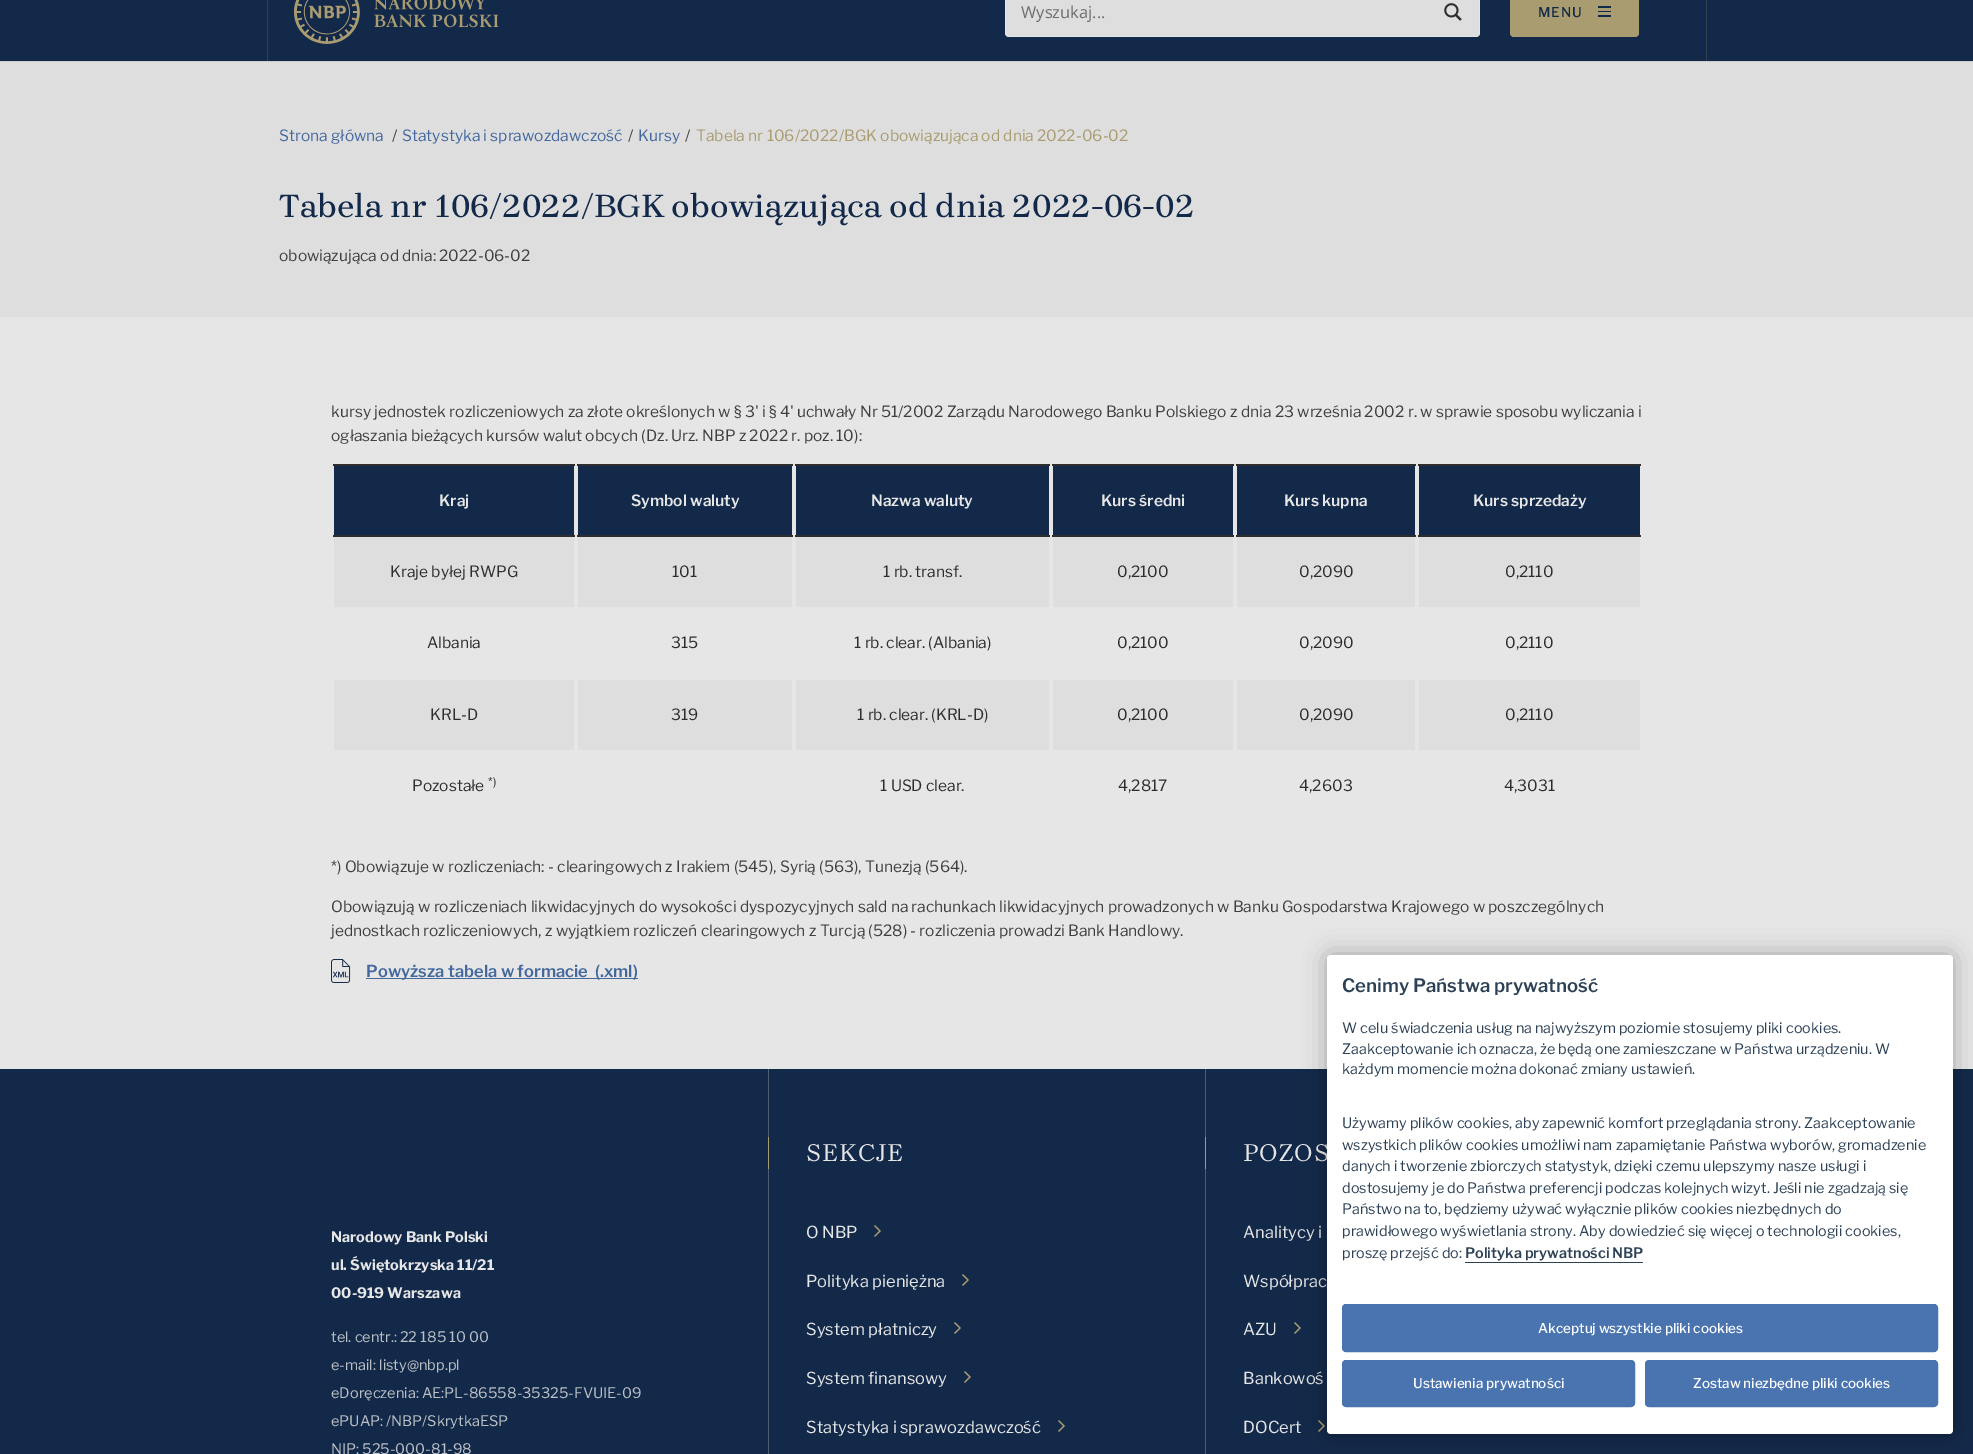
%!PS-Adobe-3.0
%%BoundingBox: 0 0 1973 1454
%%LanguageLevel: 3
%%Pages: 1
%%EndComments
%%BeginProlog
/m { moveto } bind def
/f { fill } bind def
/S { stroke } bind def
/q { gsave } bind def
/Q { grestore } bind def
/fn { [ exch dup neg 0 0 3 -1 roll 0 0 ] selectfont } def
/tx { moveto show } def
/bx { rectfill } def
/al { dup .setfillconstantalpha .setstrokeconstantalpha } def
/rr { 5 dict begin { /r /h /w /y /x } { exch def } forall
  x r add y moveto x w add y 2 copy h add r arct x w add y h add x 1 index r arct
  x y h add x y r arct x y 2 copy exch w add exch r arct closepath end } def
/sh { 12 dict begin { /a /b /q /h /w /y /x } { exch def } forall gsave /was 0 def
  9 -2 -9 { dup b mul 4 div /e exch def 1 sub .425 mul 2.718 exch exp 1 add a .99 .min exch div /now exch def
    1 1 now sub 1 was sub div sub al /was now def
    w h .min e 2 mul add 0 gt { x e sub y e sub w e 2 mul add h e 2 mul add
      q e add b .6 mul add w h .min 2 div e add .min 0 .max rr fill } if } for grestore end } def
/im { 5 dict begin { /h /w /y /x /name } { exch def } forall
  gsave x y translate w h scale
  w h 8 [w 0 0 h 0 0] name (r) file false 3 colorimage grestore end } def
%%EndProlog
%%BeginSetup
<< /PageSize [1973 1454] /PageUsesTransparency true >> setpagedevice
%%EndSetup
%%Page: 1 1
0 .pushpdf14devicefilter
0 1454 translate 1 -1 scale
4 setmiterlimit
0.902 setgray
0 0 1973 1454 bx
0.075 0.161 0.29 setrgbcolor
0 0 1973 61 bx
0.804 setgray
0 61 1973 1 bx
0.196 0.251 0.322 setrgbcolor
267 0 1 61 bx
(image0.raw) 294 0 205 44 im
0.902 setgray
1005 -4 475 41 4 rr f
0.871 setgray
1006 -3 473 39 3 rr f
/OpenSans-Regular 16.5 fn
0.427 setgray
(Wyszukaj...) 1021 18 tx
(image1.raw) 1444 3 18 18 im
0.667 0.612 0.443 setrgbcolor
1510 -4 129 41 4 rr f
/LibreFranklin-Medium 13.5 fn
0.075 0.161 0.29 setrgbcolor
1538 17 m 1 0 (MENU) ashow
1598 6 13 2 bx
1598 11 13 1 bx
1598 15 13 2 bx
0.196 0.251 0.322 setrgbcolor
1706 0 1 61 bx
0.871 setgray
0 62 1973 255 bx
/LibreFranklin-Regular 15.5 fn
0.263 0.408 0.62 setrgbcolor
(Strona główna) 279 141 tx
0.247 setgray
(/) 392 141 tx
0.263 0.408 0.62 setrgbcolor
(Statystyka i sprawozdawczość) 402 141 tx
0.247 setgray
(/) 628 141 tx
0.263 0.408 0.62 setrgbcolor
(Kursy) 638 141 tx
0.247 setgray
(/) 685 141 tx
0.667 0.612 0.443 setrgbcolor
(Tabela nr 106/2022/BGK obowiązująca od dnia 2022-06-02) 696 141 tx
/Brygada1918-Medium 33.05 fn
0.075 0.161 0.29 setrgbcolor
(Tabela nr 106/2022/BGK obowiązująca od dnia 2022-06-02) 279 217 tx
/LibreFranklin-Regular 15.5 fn
0.247 setgray
(obowiązująca od dnia: 2022-06-02) 279 261 tx
(kursy jednostek rozliczeniowych za złote określonych w § 3' i § 4' uchwały Nr 51/2002 Zarządu Narodowego Banku Polskiego z dnia 23 września 2002 r. w sprawie sposobu wyliczania i) 331 417 tx
(ogłaszania bieżących kursów walut obcych \(Dz. Urz. NBP z 2022 r. poz. 10\):) 331 441 tx
0.176 setgray
331 464 1312 2 bx
331 535 1312 2 bx
0.075 0.161 0.29 setrgbcolor
334 466 240 69 bx
0.902 setgray
331 464 2 2 bx
/LibreFranklin-SemiBold 15.5 fn
(Kraj) 439 506 tx
0.075 0.161 0.29 setrgbcolor
578 466 214 69 bx
0.902 setgray
575 464 2 2 bx
(Symbol waluty) 631 506 tx
0.075 0.161 0.29 setrgbcolor
796 466 253 69 bx
0.902 setgray
793 464 2 2 bx
(Nazwa waluty) 871 506 tx
0.075 0.161 0.29 setrgbcolor
1053 466 180 69 bx
0.902 setgray
1050 464 2 2 bx
(Kurs średni) 1101 506 tx
0.075 0.161 0.29 setrgbcolor
1237 466 178 69 bx
0.902 setgray
1234 464 2 2 bx
(Kurs kupna) 1284 506 tx
0.075 0.161 0.29 setrgbcolor
1419 466 221 69 bx
0.902 setgray
1641 464 2 2 bx
1416 464 2 2 bx
(Kurs sprzedaży) 1473 506 tx
0.871 setgray
334 537 240 70 bx
0.902 setgray
331 535 2 2 bx
/LibreFranklin-Regular 15.5 fn
0.176 setgray
(Kraje byłej RWPG) 390 577 tx
0.871 setgray
578 537 214 70 bx
0.902 setgray
575 535 2 2 bx
0.176 setgray
(101) 672 577 tx
0.871 setgray
796 537 253 70 bx
0.902 setgray
793 535 2 2 bx
0.176 setgray
(1 rb. transf.) 883 577 tx
0.871 setgray
1053 537 180 70 bx
0.902 setgray
1050 535 2 2 bx
0.176 setgray
(0,2100) 1117 577 tx
0.871 setgray
1237 537 178 70 bx
0.902 setgray
1234 535 2 2 bx
0.176 setgray
(0,2090) 1299 577 tx
0.871 setgray
1419 537 221 70 bx
0.902 setgray
1641 535 2 2 bx
1416 535 2 2 bx
0.176 setgray
(0,2110) 1505 577 tx
(Albania) 427 648 tx
(315) 671 648 tx
(1 rb. clear. \(Albania\)) 854 648 tx
(0,2100) 1117 648 tx
(0,2090) 1299 648 tx
(0,2110) 1505 648 tx
0.871 setgray
334 680 240 70 bx
0.176 setgray
(KRL-D) 430 720 tx
0.871 setgray
578 680 214 70 bx
0.176 setgray
(319) 671 720 tx
0.871 setgray
796 680 253 70 bx
0.176 setgray
(1 rb. clear. \(KRL-D\)) 857 720 tx
0.871 setgray
1053 680 180 70 bx
0.176 setgray
(0,2100) 1117 720 tx
0.871 setgray
1237 680 178 70 bx
0.176 setgray
(0,2090) 1299 720 tx
0.871 setgray
1419 680 221 70 bx
0.176 setgray
(0,2110) 1505 720 tx
(Pozostałe) 412 791 tx
/LibreFranklin-Regular 12 fn
(*\)) 488 786 tx
/LibreFranklin-Regular 15.5 fn
(1 USD clear.) 880 791 tx
(4,2817) 1118 791 tx
(4,2603) 1299 791 tx
(4,3031) 1504 791 tx
0.247 setgray
(*\) Obowiązuje w rozliczeniach: - clearingowych z Irakiem \(545\), Syrią \(563\), Tunezją \(564\).) 331 872 tx
(Obowiązują w rozliczeniach likwidacyjnych do wysokości dyspozycyjnych sald na rachunkach likwidacyjnych prowadzonych w Banku Gospodarstwa Krajowego w poszczególnych) 331 912 tx
(jednostkach rozliczeniowych, z wyjątkiem rozliczeń clearingowych z Turcją \(528\) - rozliczenia prowadzi Bank Handlowy.) 331 936 tx
(image2.raw) 331 959 20 24 im
0.263 0.408 0.62 setrgbcolor
366 978 272 1 bx
/LibreFranklin-SemiBold 16.5 fn
(Powyższa tabela w formacie) 366 977 tx
(\(.xml\)) 595 977 tx
0.075 0.161 0.29 setrgbcolor
0 1069 1973 385 bx
/LibreFranklin-Bold 14.5 fn
0.902 setgray
(Narodowy Bank Polski) 331 1242 tx
(ul. Świętokrzyska 11/21) 331 1270 tx
(00-919 Warszawa) 331 1298 tx
/LibreFranklin-Regular 14.5 fn
0.733 0.753 0.776 setrgbcolor
(tel. centr.: 22 185 10 00) 331 1342 tx
(e-mail: listy@nbp.pl) 331 1370 tx
(eDoręczenia: AE:PL-86558-35325-FVUIE-09) 331 1398 tx
(ePUAP: /NBP/SkrytkaESP) 331 1426 tx
(NIP: 525-000-81-98) 331 1454 tx
0.298 0.361 0.447 setrgbcolor
768 1069 1 385 bx
0.667 0.612 0.443 setrgbcolor
768 1137 1 32 bx
/Brygada1918-Regular 25 fn
0.902 setgray
806 1161 m 1 0 (SEKCJE) ashow
/LibreFranklin-Regular 16.5 fn
(O NBP) 806 1238 tx
(image3.raw) 874 1225 7 12 im
(Polityka pieniężna) 806 1287 tx
(image4.raw) 962 1274 7 12 im
(System płatniczy) 806 1335 tx
(image4.raw) 954 1322 7 12 im
(System finansowy) 806 1384 tx
(image4.raw) 964 1371 7 12 im
(Statystyka i sprawozdawczość) 806 1433 tx
(image4.raw) 1058 1420 7 12 im
0.298 0.361 0.447 setrgbcolor
1205 1069 1 385 bx
0.667 0.612 0.443 setrgbcolor
1205 1137 1 32 bx
/Brygada1918-Regular 25 fn
0.902 setgray
1243 1161 m 1 0 (POZOS) ashow
/LibreFranklin-Regular 16.5 fn
(Analitycy i) 1243 1238 tx
(Współprac) 1243 1287 tx
(AZU) 1243 1335 tx
(image4.raw) 1294 1322 7 12 im
(Bankowoś) 1243 1384 tx
(DOCert) 1243 1433 tx
(image4.raw) 1318 1420 7 12 im
0 setgray
1327 955 626 479 4 12 0.3 sh
1 setgray
1327 955 626 479 4 rr f
/LibreFranklin-SemiBold 18.5 fn
0.176 0.255 0.337 setrgbcolor
(Cenimy Państwa prywatność) 1342 992 tx
/LibreFranklin-Regular 14.4 fn
(W celu świadczenia usług na najwyższym poziomie stosujemy pliki cookies.) 1342 1033 tx
(Zaakceptowanie ich oznacza, że będą one zamieszczane w Państwa urządzeniu. W) 1342 1054 tx
(każdym momencie można dokonać zmiany ustawień.) 1342 1074 tx
(Używamy plików cookies, aby zapewnić komfort przeglądania strony. Zaakceptowanie) 1342 1128 tx
(wszystkich plików cookies umożliwi nam zapamiętanie Państwa wyborów, gromadzenie) 1342 1150 tx
(danych i tworzenie zbiorczych statystyk, dzięki czemu ulepszymy nasze usługi i) 1342 1171 tx
(dostosujemy je do Państwa preferencji podczas kolejnych wizyt. Jeśli nie zgadzają się) 1342 1193 tx
(Państwo na to, będziemy używać wyłącznie plików cookies niezbędnych do) 1342 1214 tx
(prawidłowego wyświetlania strony. Aby dowiedzieć się więcej o technologii cookies,) 1342 1236 tx
(proszę przejść do:) 1342 1258 tx
/LibreFranklin-SemiBold 14.4 fn
(Polityka prywatności NBP) 1465 1258 tx
1465 1262 178 1 bx
0.29 0.455 0.69 setrgbcolor
1342.5 1304.5 595 47 3.5 rr q f Q
S
/LibreFranklin-Medium 13.5 fn
1 setgray
(Akceptuj wszystkie pliki cookies) 1538 1333 tx
0.29 0.455 0.69 setrgbcolor
1342.5 1360.5 292 46 3.5 rr q f Q
S
1 setgray
(Ustawienia prywatności) 1413 1388 tx
0.29 0.455 0.69 setrgbcolor
1645.5 1360.5 292 46 3.5 rr q f Q
S
1 setgray
(Zostaw niezbędne pliki cookies) 1693 1388 tx
.poppdf14devicefilter showpage
%%EOF
